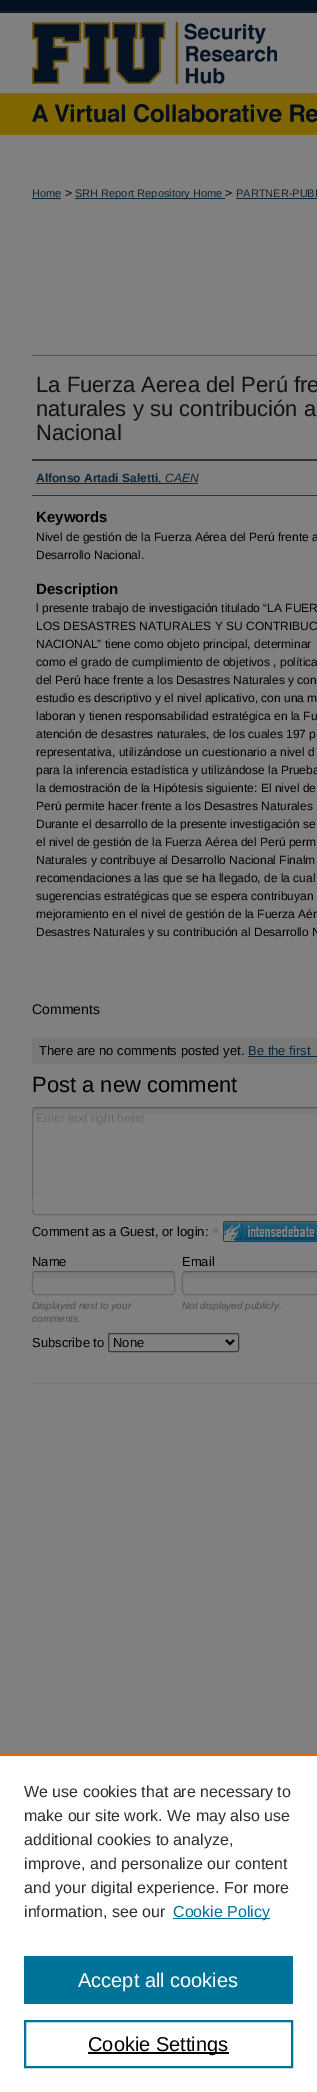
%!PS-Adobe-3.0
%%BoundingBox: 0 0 317 2092
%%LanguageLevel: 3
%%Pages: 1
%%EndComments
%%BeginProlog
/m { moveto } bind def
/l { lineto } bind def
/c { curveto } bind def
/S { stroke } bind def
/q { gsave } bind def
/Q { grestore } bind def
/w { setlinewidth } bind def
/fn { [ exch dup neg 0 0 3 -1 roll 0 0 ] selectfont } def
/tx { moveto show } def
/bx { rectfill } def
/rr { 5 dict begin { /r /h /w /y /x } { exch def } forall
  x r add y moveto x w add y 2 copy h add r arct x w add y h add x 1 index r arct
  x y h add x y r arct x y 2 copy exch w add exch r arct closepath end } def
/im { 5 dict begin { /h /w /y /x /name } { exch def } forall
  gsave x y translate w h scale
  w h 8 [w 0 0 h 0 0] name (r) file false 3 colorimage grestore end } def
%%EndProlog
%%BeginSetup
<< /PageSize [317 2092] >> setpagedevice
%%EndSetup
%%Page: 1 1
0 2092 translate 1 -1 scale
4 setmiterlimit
0.502 setgray
0 0 317 2092 bx
(image0.raw) 0 0 317 135 im
/LiberationSans-Regular 11 fn
0.031 0.153 0.243 setrgbcolor
(Home) 32 197 tx
32 198 29 1 bx
/LiberationSans-Regular 12 fn
0 setgray
(>) 65 197 tx
0.031 0.153 0.243 setrgbcolor
75 198 150 1 bx
/LiberationSans-Regular 11 fn
(SRH Report Repository Home) 75 197 tx
/LiberationSans-Regular 12 fn
0 setgray
(>) 225 197 tx
/LiberationSans-Regular 11 fn
0.031 0.153 0.243 setrgbcolor
(PARTNER-PUBL) 236 197 tx
236 198 81 1 bx
0.333 setgray
32 355 285 1 bx
/LiberationSans-Regular 22 fn
0.067 setgray
(La Fuerza Aerea del Perú fre) 36 392 tx
(naturales y su contribución a) 36 416 tx
(Nacional) 36 440 tx
0.2 setgray
32 459 285 2 bx
32 495 285 1 bx
/LiberationSans-Bold 12 fn
0.031 0.153 0.243 setrgbcolor
(Alfonso Artadi Saletti) 36 482 tx
36 483 162 1 bx
/LiberationSans-Regular 12 fn
(,) 158 482 tx
/LiberationSans-Italic 12 fn
(CAEN) 165 482 tx
/LiberationSans-Bold 15 fn
0 setgray
(Keywords) 36 522 tx
/LiberationSans-Regular 12 fn
(Nivel de gestión de la Fuerza Aérea del Perú frente a) 36 541 tx
(Desarrollo Nacional.) 36 559 tx
/LiberationSans-Bold 15 fn
(Description) 36 594 tx
/LiberationSans-Regular 12 fn
(l presente trabajo de investigación titulado “LA FUER) 36 612 tx
(LOS DESASTRES NATURALES Y SU CONTRIBUC) 36 630 tx
(NACIONAL” tiene como objeto principal, determinar) 36 648 tx
(como el grado de cumplimiento de objetivos , política) 36 666 tx
(del Perú hace frente a los Desastres Naturales y con) 36 684 tx
(estudio es descriptivo y el nivel aplicativo, con una m) 36 702 tx
(laboran y tienen responsabilidad estratégica en la Fu) 36 720 tx
(atención de desastres naturales, de los cuales 197 p) 36 738 tx
(representativa, utilizándose un cuestionario a nivel d) 36 756 tx
(para la inferencia estadística y utilizándose la Prueba) 36 774 tx
(la demostración de la Hipótesis siguiente: El nivel de) 36 792 tx
(Perú permite hacer frente a los Desastres Naturales) 36 810 tx
(Durante el desarrollo de la presente investigación se) 36 828 tx
(el nivel de gestión de la Fuerza Aérea del Perú perm) 36 846 tx
(Naturales y contribuye al Desarrollo Nacional Finalm) 36 864 tx
(recomendaciones a las que se ha llegado, de la cual) 36 882 tx
(sugerencias estratégicas que se espera contribuyan) 36 900 tx
(mejoramiento en el nivel de gestión de la Fuerza Aér) 36 918 tx
(Desastres Naturales y su contribución al Desarrollo N) 36 936 tx
/LiberationSans-Regular 14 fn
(Comments) 32 1014 tx
0.471 setgray
32 1038 285 26 bx
/LiberationSans-Regular 13 fn
0 setgray
(There are no comments posted yet.) 39 1055 tx
0.031 0.153 0.243 setrgbcolor
(Be the first) 248 1055 tx
248 1056 69 1 bx
/LiberationSans-Regular 22 fn
0 setgray
(Post a new comment) 32 1092 tx
(image1.raw) 33 1108 284 7 im
0.345 setgray
33.5 1108.5 m 34 1108 35 1107.5 36 1107.5 c 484 1107.5 l 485 1107.5 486 1108 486.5 1108.5 c S
q
32 1107 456 112 rectclip
0.4 setgray
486.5 1108.5 m 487.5 1111 l 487.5 1194.5 l 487.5 1201 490.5 1214.5 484 1214.5 c 36 1214.5 l 29.5 1214.5 32.5 1201 32.5 1194.5 c 32.5 1111 l 33.5 1108.5 l S
Q
/LiberationSans-Regular 12 fn
0.4 setgray
(Enter text right here!) 36 1122 tx
/LiberationSans-Regular 13 fn
0 setgray
(Comment as a Guest, or login:) 32 1236 tx
0.443 setgray
213 1228 5 5 bx
(image2.raw) 223 1221 94 21 im
0 setgray
(Name) 32 1266 tx
(Email) 182 1266 tx
(image3.raw) 33 1272 142 7 im
0.345 setgray
33.5 1272.5 m 34 1272 35 1271.5 36 1271.5 c 171 1271.5 l 172 1271.5 173 1272 173.5 1272.5 c S
0.4 setgray
173.5 1272.5 m 175.5 1274.5 174.5 1280.5 174.5 1283 c 174.5 1286 176.5 1294.5 171 1294.5 c 36 1294.5 l 30.5 1294.5 32.5 1286 32.5 1283 c 32.5 1280.5 31.5 1274.5 33.5 1272.5 c S
/LiberationSans-Italic 10 fn
0.302 setgray
(Displayed next to your) 32 1309 tx
(comments.) 32 1322 tx
(image4.raw) 183 1272 134 7 im
0.345 setgray
183.5 1272.5 m 184 1272 185 1271.5 186 1271.5 c 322 1271.5 l 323 1271.5 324 1272 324.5 1272.5 c S
0.4 setgray
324.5 1272.5 m 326.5 1274.5 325.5 1280.5 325.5 1283 c 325.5 1286 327.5 1294.5 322 1294.5 c 186 1294.5 l 180.5 1294.5 182.5 1286 182.5 1283 c 182.5 1280.5 181.5 1274.5 183.5 1272.5 c S
0.302 setgray
(Not displayed publicly.) 182 1309 tx
/LiberationSans-Regular 13 fn
0 setgray
(Subscribe to) 32 1347 tx
0.231 setgray
108.5 1333.5 130 18 1.5 rr S
0 setgray
2 w
226 1340 m 230 1344 l 234 1340 l S
(None) 113 1347 tx
0.467 setgray
32 1383 285 1 bx
1 setgray
0 1756 317 336 bx
0.922 0.396 0 setrgbcolor
0 1754 317 2 bx
/LiberationSans-Regular 16 fn
0.18 setgray
(We use cookies that are necessary to) 24 1797 tx
(make our site work. We may also use) 24 1821 tx
(additional cookies to analyze,) 24 1845 tx
(improve, and personalize our content) 24 1869 tx
(and your digital experience. For more) 24 1893 tx
(information, see our) 24 1917 tx
0 0.451 0.596 setrgbcolor
173 1918 97 1 bx
(Cookie Policy) 173 1917 tx
24 1956 269 48 bx
/LiberationSans-Regular 20 fn
1 setgray
(Accept all cookies) 78 1987 tx
0 0.451 0.596 setrgbcolor
25 2021 267 46 rectstroke
0 setgray
88 2052 141 2 bx
(Cookie Settings) 88 2051 tx
showpage
%%EOF
